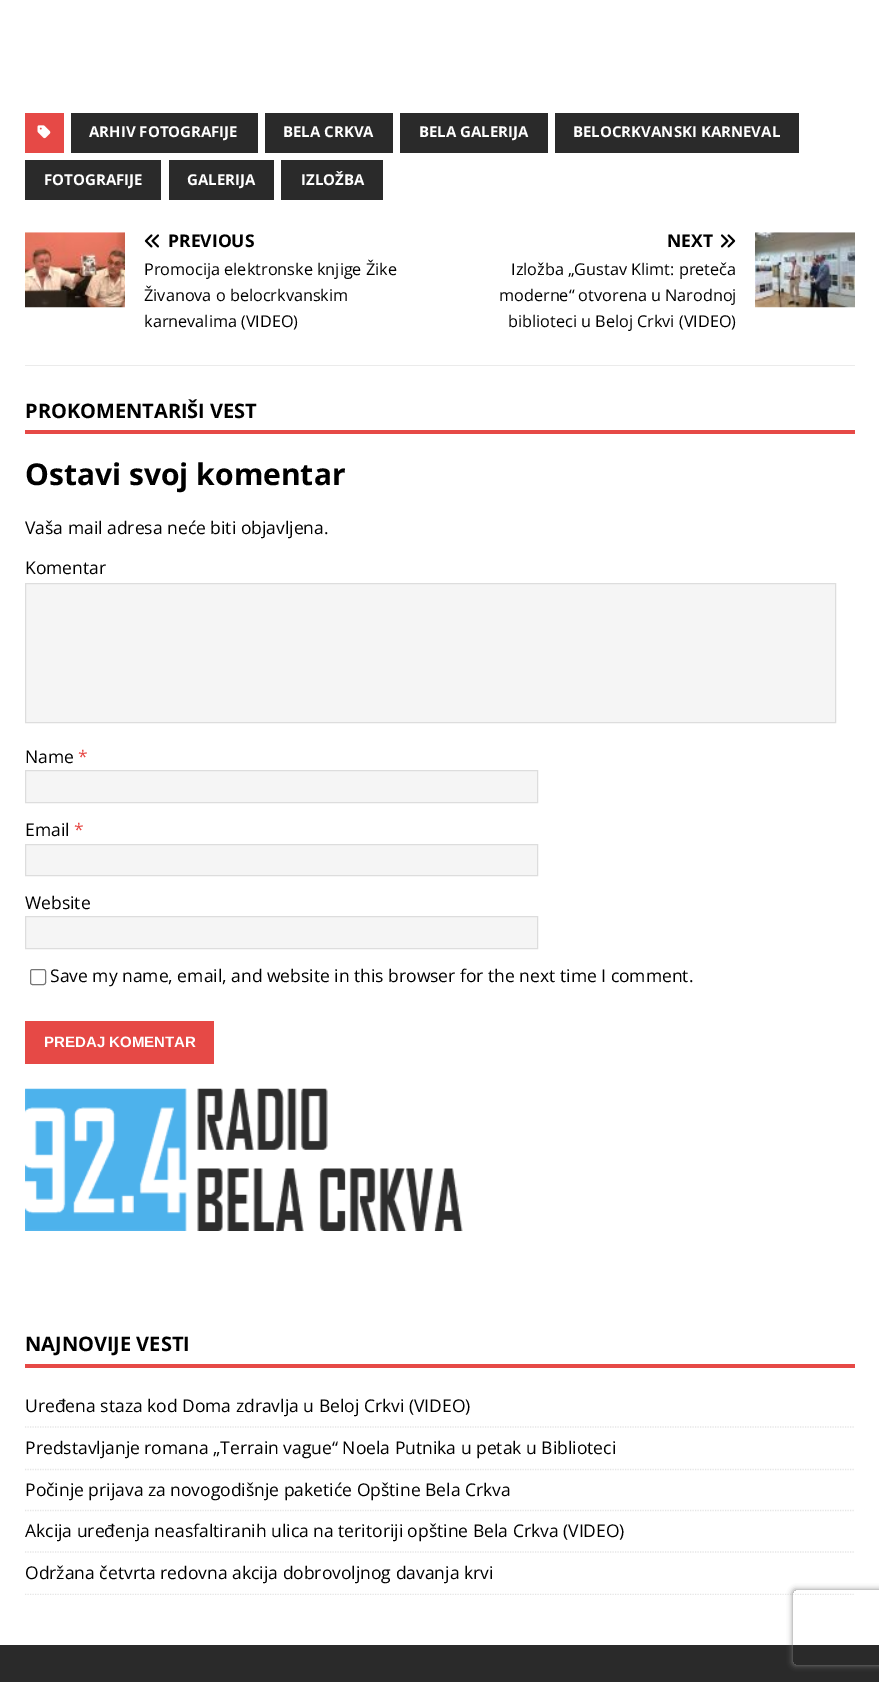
%!PS-Adobe-3.0
%%BoundingBox: 0 0 879 1682
%%LanguageLevel: 3
%%Pages: 1
%%EndComments
%%BeginProlog
/m { moveto } bind def
/l { lineto } bind def
/c { curveto } bind def
/h { closepath } bind def
/f { fill } bind def
/S { stroke } bind def
/q { gsave } bind def
/Q { grestore } bind def
/w { setlinewidth } bind def
/fn { [ exch dup neg 0 0 3 -1 roll 0 0 ] selectfont } def
/tx { moveto show } def
/bx { rectfill } def
/al { dup .setfillconstantalpha .setstrokeconstantalpha } def
/rr { 5 dict begin { /r /h /w /y /x } { exch def } forall
  x r add y moveto x w add y 2 copy h add r arct x w add y h add x 1 index r arct
  x y h add x y r arct x y 2 copy exch w add exch r arct closepath end } def
/sh { 12 dict begin { /a /b /q /h /w /y /x } { exch def } forall gsave /was 0 def
  9 -2 -9 { dup b mul 4 div /e exch def 1 sub .425 mul 2.718 exch exp 1 add a .99 .min exch div /now exch def
    1 1 now sub 1 was sub div sub al /was now def
    w h .min e 2 mul add 0 gt { x e sub y e sub w e 2 mul add h e 2 mul add
      q e add b .6 mul add w h .min 2 div e add .min 0 .max rr fill } if } for grestore end } def
/im { 5 dict begin { /h /w /y /x /name } { exch def } forall
  gsave x y translate w h scale
  w h 8 [w 0 0 h 0 0] name (r) file false 3 colorimage grestore end } def
%%EndProlog
%%BeginSetup
<< /PageSize [879 1682] /PageUsesTransparency true >> setpagedevice
%%EndSetup
%%Page: 1 1
0 .pushpdf14devicefilter
0 1682 translate 1 -1 scale
4 setmiterlimit
1 setgray
0 0 879 1682 bx
0.902 0.286 0.275 setrgbcolor
25 113 39 40 bx
(image0.raw) 37 125 14 14 im
0.165 setgray
71 113 187 40 bx
/OpenSans-Bold 15 fn
1 setgray
(ARHIV FOTOGRAFIJE) 89 137 tx
0.165 setgray
265 113 128 40 bx
1 setgray
(BELA CRKVA) 283 137 tx
0.165 setgray
400 113 148 40 bx
1 setgray
(BELA GALERIJA) 419 137 tx
0.165 setgray
555 113 244 40 bx
1 setgray
(BELOCRKVANSKI KARNEVAL) 573 137 tx
0.165 setgray
25 160 136 40 bx
1 setgray
(FOTOGRAFIJE) 44 185 tx
0.165 setgray
169 160 105 40 bx
1 setgray
(GALERIJA) 187 185 tx
0.165 setgray
281 160 102 40 bx
1 setgray
(IZLOŽBA) 301 185 tx
0.922 setgray
25 365 830 1 bx
(image1.raw) 25 232 100 76 im
(image2.raw) 144 234 15 14 im
/OpenSans-Bold 17.5 fn
0 setgray
(PREVIOUS) 168 247 tx
/OpenSans-Regular 16.25 fn
(Promocija elektronske knjige Žike) 144 275 tx
(Živanova o belocrkvanskim) 144 301 tx
(karnevalima \(VIDEO\)) 144 327 tx
/OpenSans-Bold 17.5 fn
(NEXT) 667 247 tx
(image3.raw) 720 234 16 14 im
(image4.raw) 755 232 100 76 im
/OpenSans-Regular 16.25 fn
(Izložba „Gustav Klimt: preteča) 511 275 tx
(moderne“ otvorena u Narodnoj) 499 301 tx
(biblioteci u Beloj Crkvi \(VIDEO\)) 508 327 tx
0.902 0.286 0.275 setrgbcolor
25 430 830 4 bx
/OpenSans-Bold 20 fn
0 setgray
(PROKOMENTARIŠI VEST) 25 418 tx
/OpenSans-Bold 30 fn
(Ostavi svoj komentar) 25 485 tx
/OpenSans-Regular 17.5 fn
(Vaša mail adresa neće biti objavljena.) 25 534 tx
(Komentar) 25 574 tx
0.961 setgray
25.5 583.5 m 835.5 583.5 l 835.5 722.5 l 25.5 722.5 l h q f Q
0.867 setgray
S
0 setgray
(Name) 25 763 tx
0.902 0.286 0.275 setrgbcolor
(*) 78 763 tx
0.961 setgray
25.5 770.5 m 537.5 770.5 l 537.5 802.5 l 25.5 802.5 l h q f Q
0.867 setgray
S
0 setgray
(Email) 25 836 tx
0.902 0.286 0.275 setrgbcolor
(*) 74 836 tx
0.961 setgray
25.5 844.5 m 537.5 844.5 l 537.5 875.5 l 25.5 875.5 l h q f Q
0.867 setgray
S
0 setgray
(Website) 25 909 tx
0.961 setgray
25.5 916.5 m 537.5 916.5 l 537.5 948.5 l 25.5 948.5 l h q f Q
0.867 setgray
S
0.463 setgray
30.5 969.5 15 15 2 rr S
0 setgray
(Save my name, email, and website in this browser for the next time I comment.) 50 982 tx
0.902 0.286 0.275 setrgbcolor
25 1021 189 43 bx
/LiberationSans-Bold 15 fn
1 setgray
(PREDAJ KOMENTAR) 44 1047 tx
(image5.raw) 25 1088 438 143 im
0.902 0.286 0.275 setrgbcolor
25 1364 830 4 bx
/OpenSans-Bold 20 fn
0 setgray
(NAJNOVIJE VESTI) 25 1351 tx
0.898 setgray
1.2 w
[1.25 1.25] 0 setdash
25 1427 m 855 1427 l S
/OpenSans-Regular 17.5 fn
0 setgray
(Uređena staza kod Doma zdravlja u Beloj Crkvi \(VIDEO\)) 25 1412 tx
0.898 setgray
25 1469.5 m 855 1469.5 l S
0 setgray
(Predstavljanje romana „Terrain vague“ Noela Putnika u petak u Biblioteci) 25 1454 tx
0.898 setgray
25 1510.5 m 855 1510.5 l S
0 setgray
(Počinje prijava za novogodišnje paketiće Opštine Bela Crkva) 25 1496 tx
0.898 setgray
25 1552 m 855 1552 l S
0 setgray
(Akcija uređenja neasfaltiranih ulica na teritoriji opštine Bela Crkva \(VIDEO\)) 25 1537 tx
q
25 1331 830 264 rectclip
0.898 setgray
25 1594.5 m 855 1594.5 l S
Q
(Održana četvrta redovna akcija dobrovoljnog davanja krvi) 25 1579 tx
0.165 setgray
0 1645 879 37 bx
q
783 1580 m 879 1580 l 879 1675 l 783 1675 l h 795.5 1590 m 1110.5 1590 l 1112 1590 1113 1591 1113 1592.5 c 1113 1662.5 l 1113 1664 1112 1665 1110.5 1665 c 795.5 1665 l 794 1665 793 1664 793 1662.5 c 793 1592.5 l 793 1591 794 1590 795.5 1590 c h eoclip newpath
0.502 setgray
793 1590 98 75 2.5 3 1 sh
Q
.poppdf14devicefilter showpage
%%EOF
